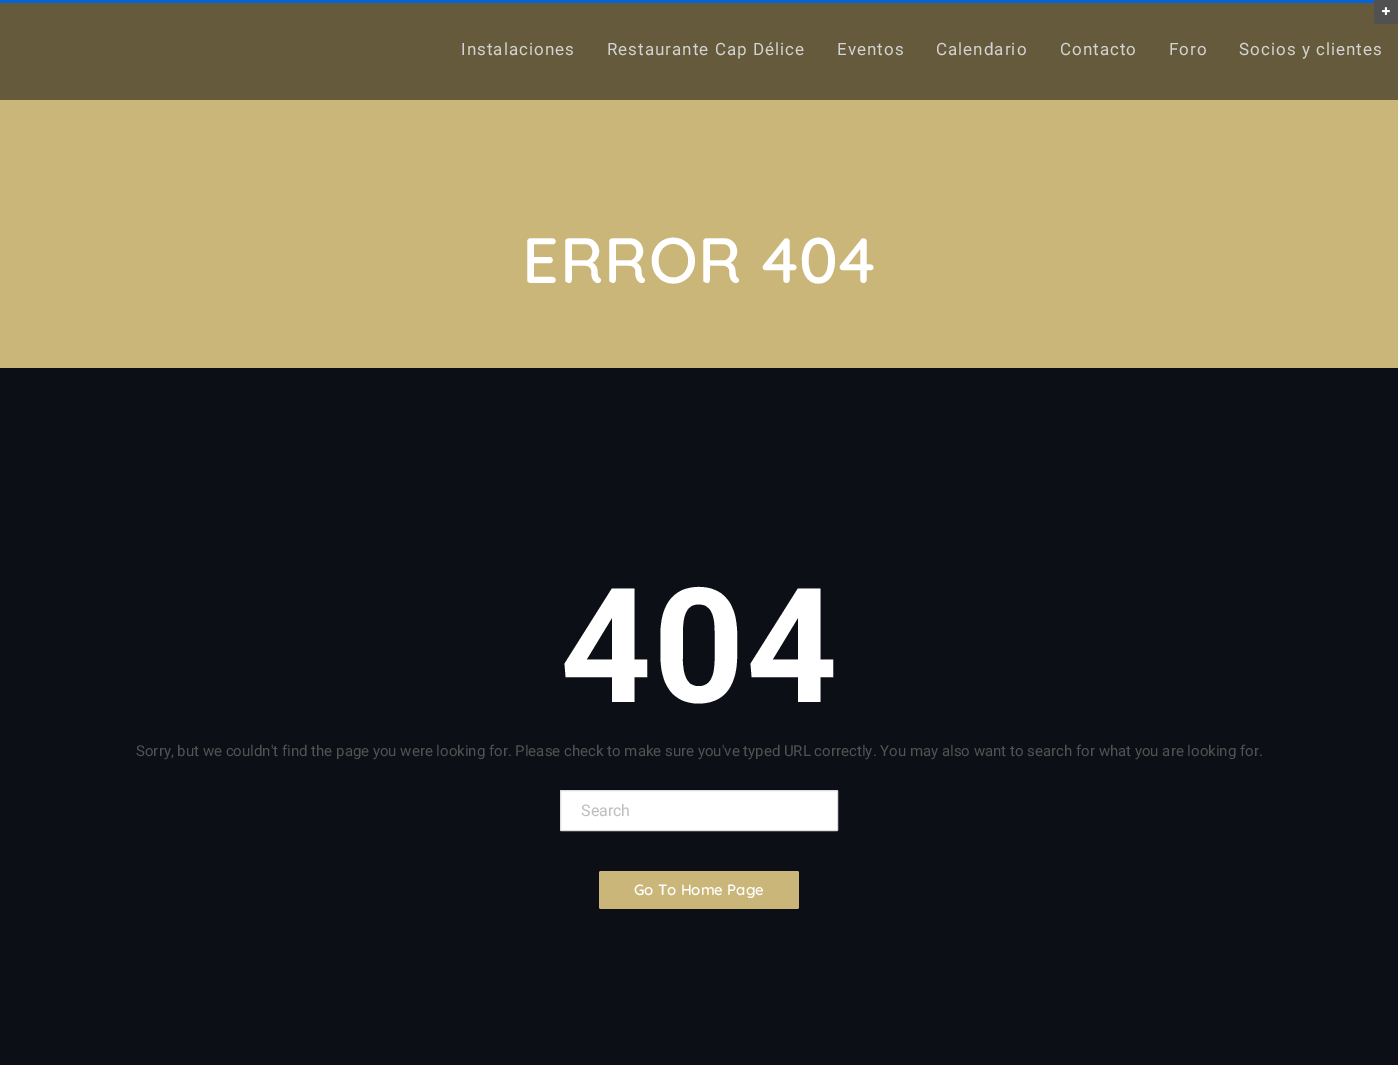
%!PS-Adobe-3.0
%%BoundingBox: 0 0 1398 1065
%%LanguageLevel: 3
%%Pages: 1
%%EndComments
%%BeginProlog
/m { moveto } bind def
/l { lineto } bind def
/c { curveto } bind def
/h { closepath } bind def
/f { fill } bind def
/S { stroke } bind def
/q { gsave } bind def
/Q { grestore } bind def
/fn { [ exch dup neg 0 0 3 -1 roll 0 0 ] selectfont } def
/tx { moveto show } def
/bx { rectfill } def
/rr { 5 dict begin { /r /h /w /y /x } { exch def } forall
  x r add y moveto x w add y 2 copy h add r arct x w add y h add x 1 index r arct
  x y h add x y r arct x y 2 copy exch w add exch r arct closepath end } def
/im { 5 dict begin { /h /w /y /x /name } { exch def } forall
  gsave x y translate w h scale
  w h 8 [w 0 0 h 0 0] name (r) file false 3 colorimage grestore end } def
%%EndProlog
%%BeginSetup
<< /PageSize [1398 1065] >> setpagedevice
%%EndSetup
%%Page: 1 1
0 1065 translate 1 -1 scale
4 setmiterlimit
0.051 0.059 0.086 setrgbcolor
0 0 1398 1065 bx
0.008 0.392 0.843 setrgbcolor
0 0 1374 3 bx
0.396 0.357 0.235 setrgbcolor
0 3 1398 97 bx
0.318 setgray
1374 0 m 1398 0 l 1398 22 l 1398 23 1397 24 1396 24 c 1376 24 l 1375 24 1374 23 1374 22 c h f
(image0.raw) 1382 7 8 8 im
/Roboto-Regular 17 fn
0.827 setgray
461 55 m 1 0 (Instalaciones) ashow
607 55 m 1 0 (Restaurante Cap Délice) ashow
837 55 m 1 0 (Eventos) ashow
936 55 m 1 0 (Calendario) ashow
1060 55 m 1 0 (Contacto) ashow
1169 55 m 1 0 (Foro) ashow
1239 55 m 1 0 (Socios y clientes) ashow
0.792 0.714 0.471 setrgbcolor
0 100 1398 268 bx
/Quicksand-SemiBold 64 fn
1 setgray
522 283 m 1 0 (ERROR 404) ashow
/Roboto-Bold 160 fn
560 702 m 1 0 (404) ashow
/Roboto-Regular 15 fn
0.322 setgray
(Sorry, but we couldn't find the page you were looking for. Please check to make sure you've typed URL correctly. You may also want to search for what you are looking for.) 136 756 tx
1 setgray
560.5 790.5 277 40 0.5 rr q f Q
0.867 setgray
S
/Roboto-Regular 16 fn
0.745 setgray
(Search) 581 816 tx
0.792 0.714 0.471 setrgbcolor
599 871 200 38 2 rr f
/Quicksand-SemiBold 15 fn
1 setgray
(Go To Home Page) 634 895 tx
showpage
%%EOF
